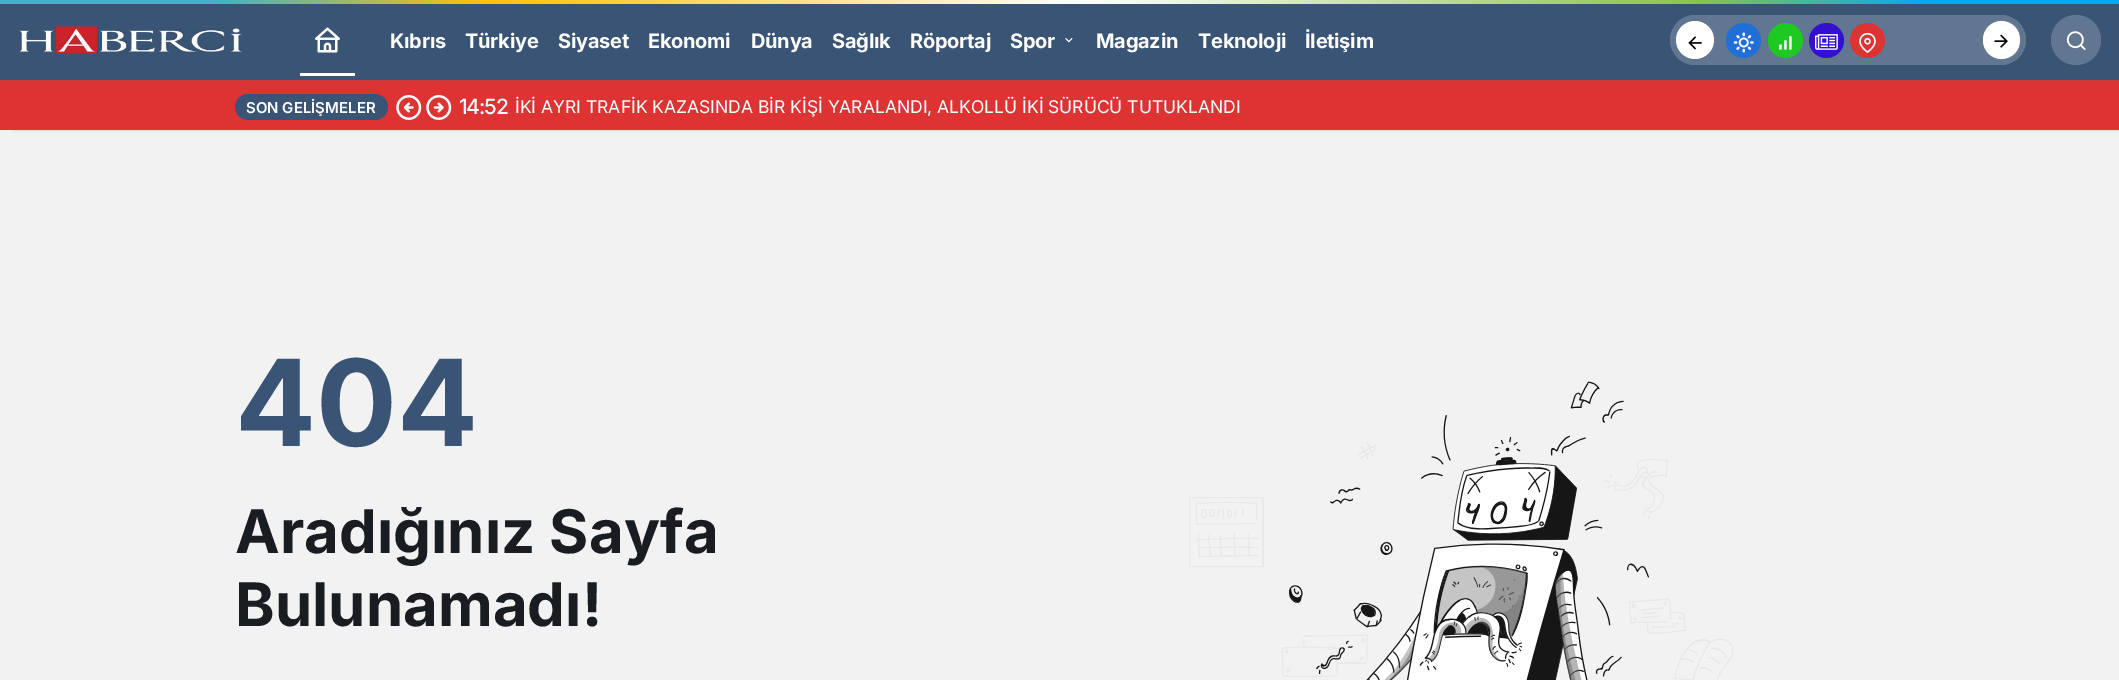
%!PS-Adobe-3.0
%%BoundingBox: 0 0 2119 680
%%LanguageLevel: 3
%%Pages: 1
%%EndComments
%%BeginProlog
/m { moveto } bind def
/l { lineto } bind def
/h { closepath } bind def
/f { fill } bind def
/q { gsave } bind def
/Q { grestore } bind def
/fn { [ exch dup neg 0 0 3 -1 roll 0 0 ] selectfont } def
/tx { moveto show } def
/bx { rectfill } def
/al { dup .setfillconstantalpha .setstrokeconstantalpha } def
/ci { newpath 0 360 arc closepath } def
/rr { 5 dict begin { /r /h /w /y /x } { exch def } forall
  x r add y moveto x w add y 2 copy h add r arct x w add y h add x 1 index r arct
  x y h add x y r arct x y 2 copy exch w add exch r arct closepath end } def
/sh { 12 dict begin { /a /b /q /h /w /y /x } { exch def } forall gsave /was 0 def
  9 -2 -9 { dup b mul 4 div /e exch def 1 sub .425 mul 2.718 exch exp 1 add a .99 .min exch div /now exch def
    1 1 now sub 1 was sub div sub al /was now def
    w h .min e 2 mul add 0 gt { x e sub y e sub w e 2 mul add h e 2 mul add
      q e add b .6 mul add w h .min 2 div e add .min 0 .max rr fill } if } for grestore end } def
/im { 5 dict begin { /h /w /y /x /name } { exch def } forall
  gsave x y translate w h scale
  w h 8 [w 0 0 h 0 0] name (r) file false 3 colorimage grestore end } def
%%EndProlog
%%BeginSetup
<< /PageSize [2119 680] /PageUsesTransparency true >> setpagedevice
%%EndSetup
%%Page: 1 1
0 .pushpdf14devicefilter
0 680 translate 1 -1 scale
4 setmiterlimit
0.949 0.949 0.953 setrgbcolor
0 0 2119 680 bx
0 setgray
13 1 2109 130 0 1 0.1 sh
q 0 0 m 2119 0 l 2119 4 l 0 4 l h clip newpath
<< /ShadingType 2 /ColorSpace /DeviceRGB /Coords [0 1.9 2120 1.9] /Extend [true true] /Function << /FunctionType 3 /Domain [0 1] /Functions [<< /FunctionType 2 /Domain [0 1] /C0 [0.259 0.694 0.792] /C1 [0.259 0.694 0.792] /N 1 >> << /FunctionType 2 /Domain [0 1] /C0 [0.259 0.694 0.792] /C1 [1 0.757 0.027] /N 1 >> << /FunctionType 2 /Domain [0 1] /C0 [1 0.757 0.027] /C1 [1 1 1] /N 1 >> << /FunctionType 2 /Domain [0 1] /C0 [1 1 1] /C1 [0.545 0.765 0.29] /N 1 >> << /FunctionType 2 /Domain [0 1] /C0 [0.545 0.765 0.29] /C1 [0.012 0.663 0.957] /N 1 >> << /FunctionType 2 /Domain [0 1] /C0 [0.012 0.663 0.957] /C1 [0.012 0.663 0.957] /N 1 >>] /Bounds [0.1 0.23 0.51 0.8 0.91] /Encode [0 1 0 1 0 1 0 1 0 1 0 1] >> >> shfill Q
0.227 0.329 0.459 setrgbcolor
0 4 2119 76 bx
(image0.raw) 18 26 225 28 im
(image1.raw) 315 27 25 26 im
1 setgray
300 73 55 3 bx
/Inter-Bold 20 fn
390 48 m -0.25 0 (Kıbrıs) ashow
465 48 m -0.25 0 (Türkiye) ashow
558 48 m -0.25 0 (Siyaset) ashow
648 48 m -0.25 0 (Ekonomi) ashow
751 48 m -0.25 0 (Dünya) ashow
832 48 m -0.25 0 (Sağlık) ashow
910 48 m -0.25 0 (Röportaj) ashow
1010 48 m -0.25 0 (Spor) ashow
(image2.raw) 1065 38 8 5 im
1096 48 m -0.25 0 (Magazin) ashow
1198 48 m -0.25 0 (Teknoloji) ashow
1305 48 m -0.25 0 (İletişim) ashow
0.38 0.463 0.569 setrgbcolor
1670 15 356 50 25 rr f
1 setgray
1695 40 19 ci f
(image3.raw) 1688 36 14 14 im
0.125 0.435 0.839 setrgbcolor
1743.5 40.5 17.5 ci f
(image4.raw) 1733 32 21 21 im
0.118 0.788 0.129 setrgbcolor
1785.5 40.5 17.5 ci f
(image5.raw) 1779 36 13 14 im
0.2 0.063 0.82 setrgbcolor
1826.5 40.5 17.5 ci f
(image6.raw) 1815 34 23 16 im
0.867 0.2 0.2 setrgbcolor
1867.5 40.5 17.5 ci f
(image7.raw) 1859 32 17 21 im
1 setgray
1983 21 37 38 18.5 rr f
(image8.raw) 1994 34 14 14 im
0.38 0.463 0.569 setrgbcolor
2076 40 25 ci f
(image9.raw) 2066 31 20 19 im
0.867 0.2 0.2 setrgbcolor
0 81 2119 49 bx
0.765 0.235 0.247 setrgbcolor
0 80 2119 1 bx
0.227 0.329 0.459 setrgbcolor
235 94 153 26 13 rr f
/Inter-SemiBold 15 fn
1 setgray
(SON GELİŞMELER) 246 113 tx
(image10.raw) 396 95 26 25 im
(image11.raw) 426 95 26 25 im
/Inter-Medium 21 fn
459 114 m -1.25 0 (14:52) ashow
/Inter-Regular 17.5 fn
(İKİ AYRI TRAFİK KAZASINDA BİR KİŞİ YARALANDI, ALKOLLÜ İKİ SÜRÜCÜ TUTUKLANDI) 515 113 tx
/Inter-Bold 120 fn
0.227 0.329 0.459 setrgbcolor
(404) 235 446 tx
/Inter-Bold 60 fn
0.098 0.11 0.125 setrgbcolor
(Aradığınız Sayfa) 235 553 tx
(Bulunamadı!) 235 626 tx
(image12.raw) 1189 381 545 299 im
.poppdf14devicefilter showpage
%%EOF
